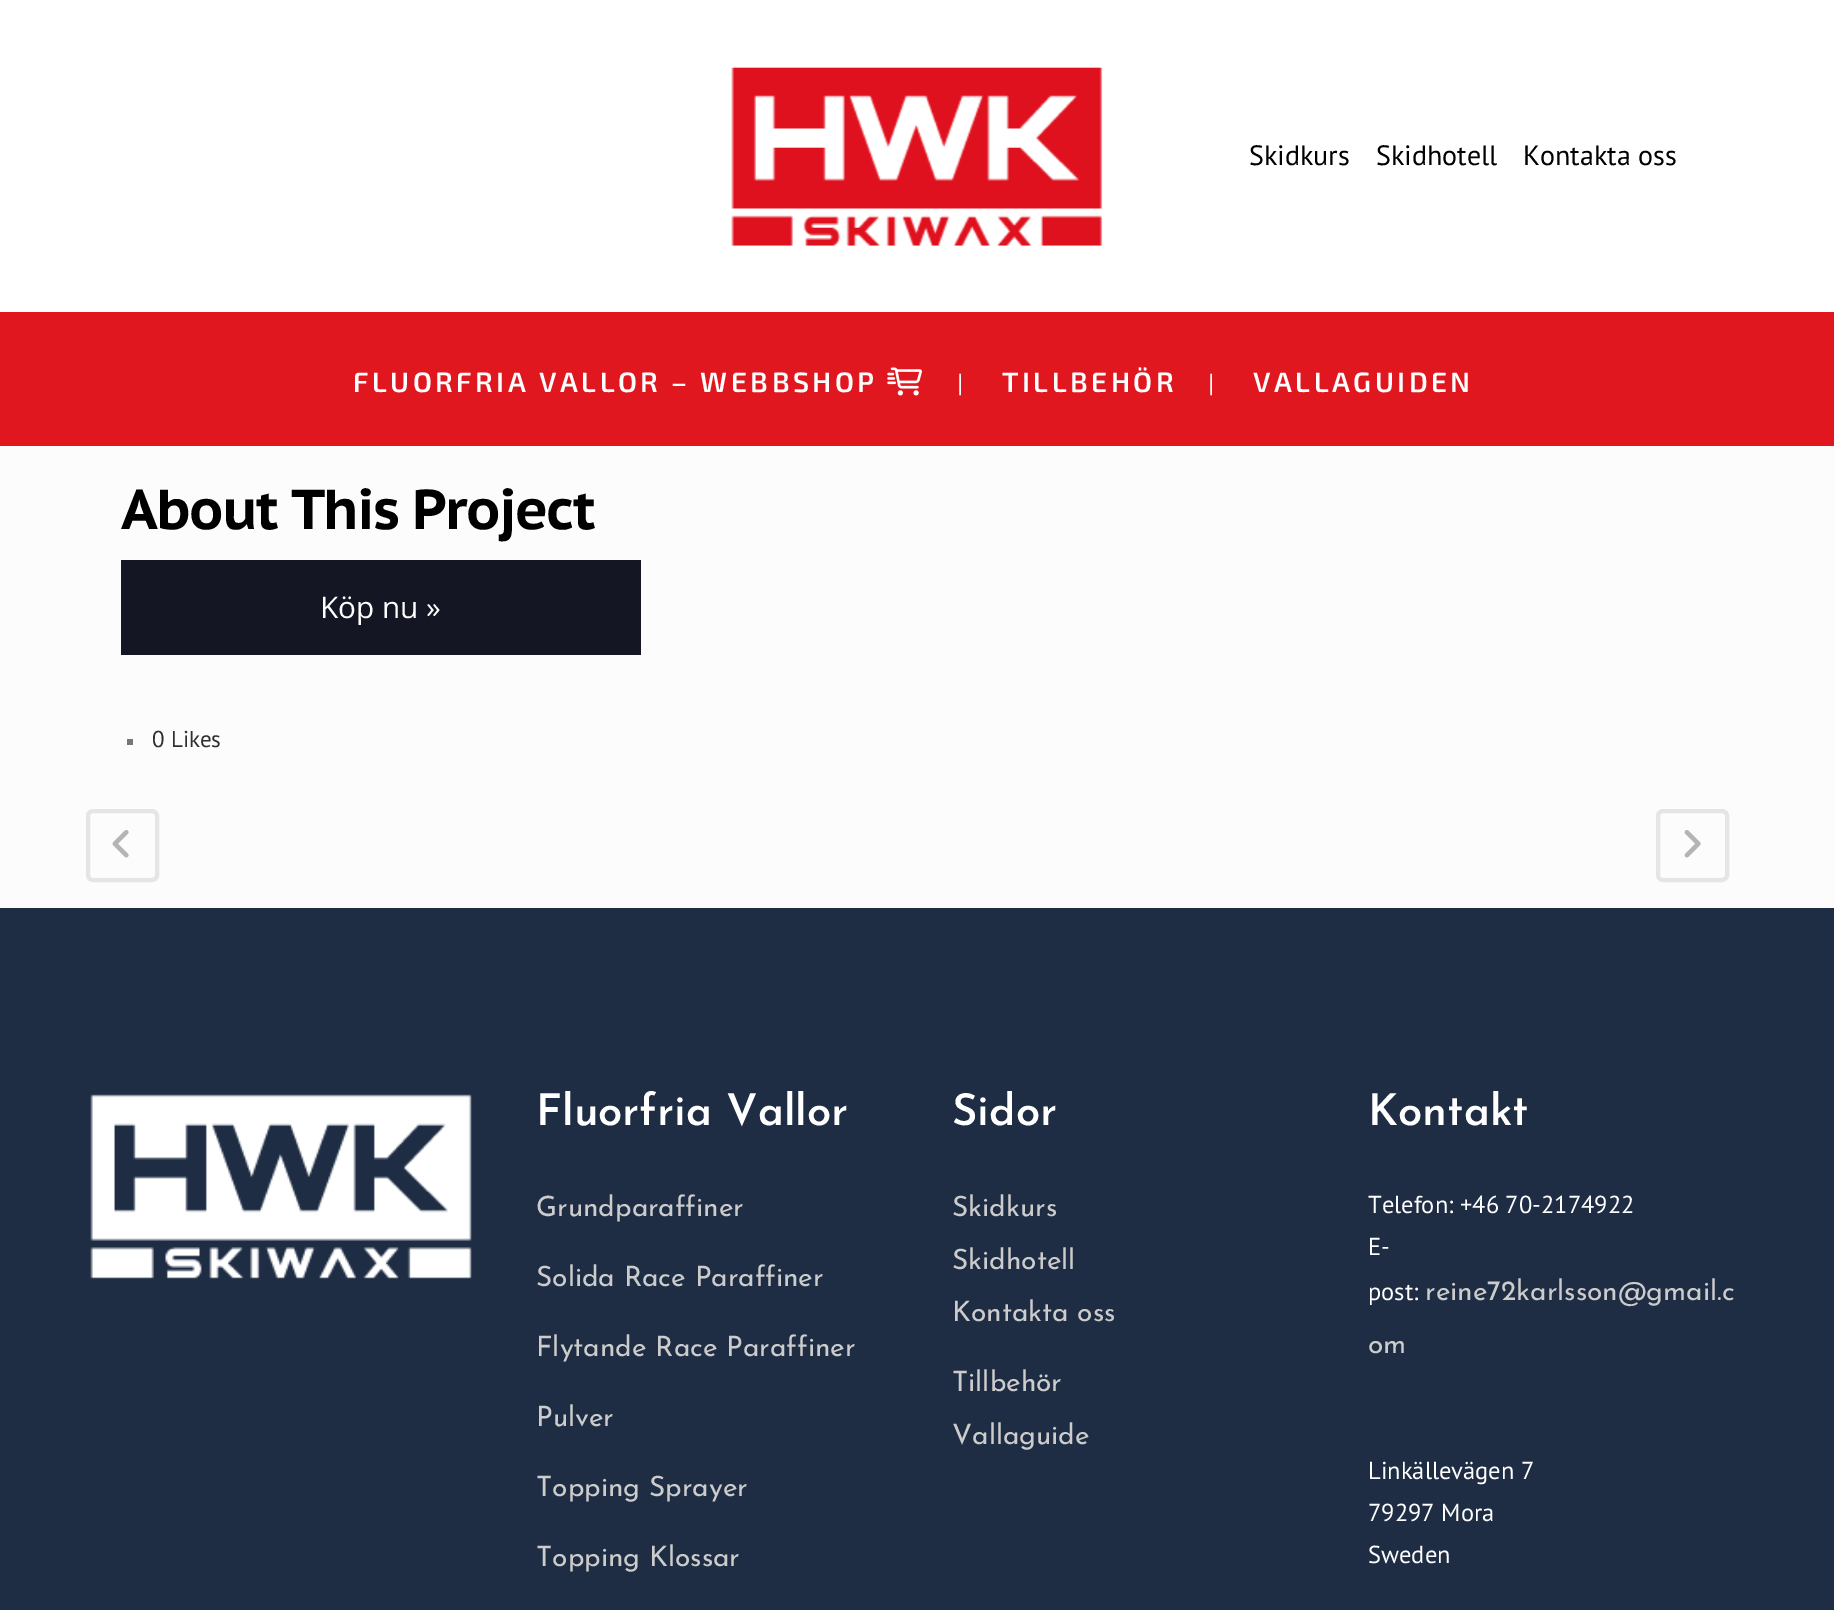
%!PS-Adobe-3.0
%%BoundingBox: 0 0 1834 1610
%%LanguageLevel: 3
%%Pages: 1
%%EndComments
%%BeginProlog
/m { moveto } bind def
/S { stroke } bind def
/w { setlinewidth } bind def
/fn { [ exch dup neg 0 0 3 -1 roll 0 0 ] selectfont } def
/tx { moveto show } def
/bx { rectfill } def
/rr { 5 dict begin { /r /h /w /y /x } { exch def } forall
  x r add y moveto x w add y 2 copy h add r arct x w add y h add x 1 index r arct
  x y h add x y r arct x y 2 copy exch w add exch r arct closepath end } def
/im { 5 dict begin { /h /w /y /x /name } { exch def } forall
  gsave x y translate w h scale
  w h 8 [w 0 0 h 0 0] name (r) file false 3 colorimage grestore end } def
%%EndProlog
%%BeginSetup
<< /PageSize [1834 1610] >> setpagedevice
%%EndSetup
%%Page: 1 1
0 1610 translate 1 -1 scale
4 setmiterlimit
0.988 setgray
0 0 1834 1610 bx
1 setgray
0 0 1834 312 bx
(image0.raw) 731 67 372 179 im
/PTSans-Regular 28 fn
0 setgray
(Skidkurs) 1249 165 tx
(Skidhotell) 1376 165 tx
(Kontakta oss) 1523 165 tx
0.878 0.09 0.118 setrgbcolor
0 312 1834 134 bx
/Exo2-SemiBold 28 fn
1 setgray
353 392 m 3.5 0 (FLUORFRIA VALLOR – WEBBSHOP) ashow
(image1.raw) 887 367 35 29 im
/PTSans-Regular 26 fn
(|) 957 392 tx
/Exo2-SemiBold 28 fn
1002 392 m 3.5 0 (TILLBEHÖR) ashow
/PTSans-Regular 26 fn
(|) 1208 392 tx
/Exo2-SemiBold 28 fn
1253 392 m 3.5 0 (VALLAGUIDEN) ashow
/PTSansCaption-Bold 56 fn
0 setgray
121 529 m -1.75 0 (About This Project) ashow
0.082 0.086 0.137 setrgbcolor
121 560 520 95 bx
/OpenSans-Regular 29.75 fn
1 setgray
(Köp nu ») 320 618 tx
0.467 setgray
127 739 6 6 bx
/PTSans-Regular 23 fn
0.188 setgray
(0 Likes) 152 747 tx
0.898 setgray
4 w
88 811 69 69 5 rr S
(image2.raw) 112 830 17 28 im
1658 811 69 69 5 rr S
(image3.raw) 1684 830 17 28 im
0.118 0.176 0.267 setrgbcolor
0 908 1834 702 bx
(image4.raw) 90 1094 382 185 im
/JosefinSans-SemiBold 43.75 fn
1 setgray
(Fluorfria Vallor) 536 1125 tx
/JosefinSans-Regular 28 fn
0.8 setgray
(Grundparaffiner) 536 1216 tx
(Solida Race Paraffiner) 536 1286 tx
(Flytande Race Paraffiner) 536 1356 tx
(Pulver) 536 1426 tx
(Topping Sprayer) 536 1496 tx
(Topping Klossar) 536 1566 tx
/JosefinSans-SemiBold 43.75 fn
1 setgray
(Sidor) 952 1125 tx
/JosefinSans-Regular 28 fn
0.8 setgray
(Skidkurs) 952 1216 tx
(Skidhotell) 952 1269 tx
(Kontakta oss) 952 1321 tx
(Tillbehör) 952 1391 tx
(Vallaguide) 952 1444 tx
/JosefinSans-SemiBold 43.75 fn
1 setgray
(Kontakt) 1368 1125 tx
/PTSans-Regular 24.5 fn
(Telefon: +46 70-2174922) 1368 1213 tx
(E-) 1368 1255 tx
(post:) 1368 1300 tx
/JosefinSans-Regular 28 fn
0.8 setgray
(reine72karlsson@gmail.c) 1425 1300 tx
(om) 1368 1353 tx
/PTSans-Regular 24.5 fn
1 setgray
(Linkällevägen 7) 1368 1479 tx
(79297 Mora) 1368 1521 tx
(Sweden) 1368 1563 tx
showpage
%%EOF
